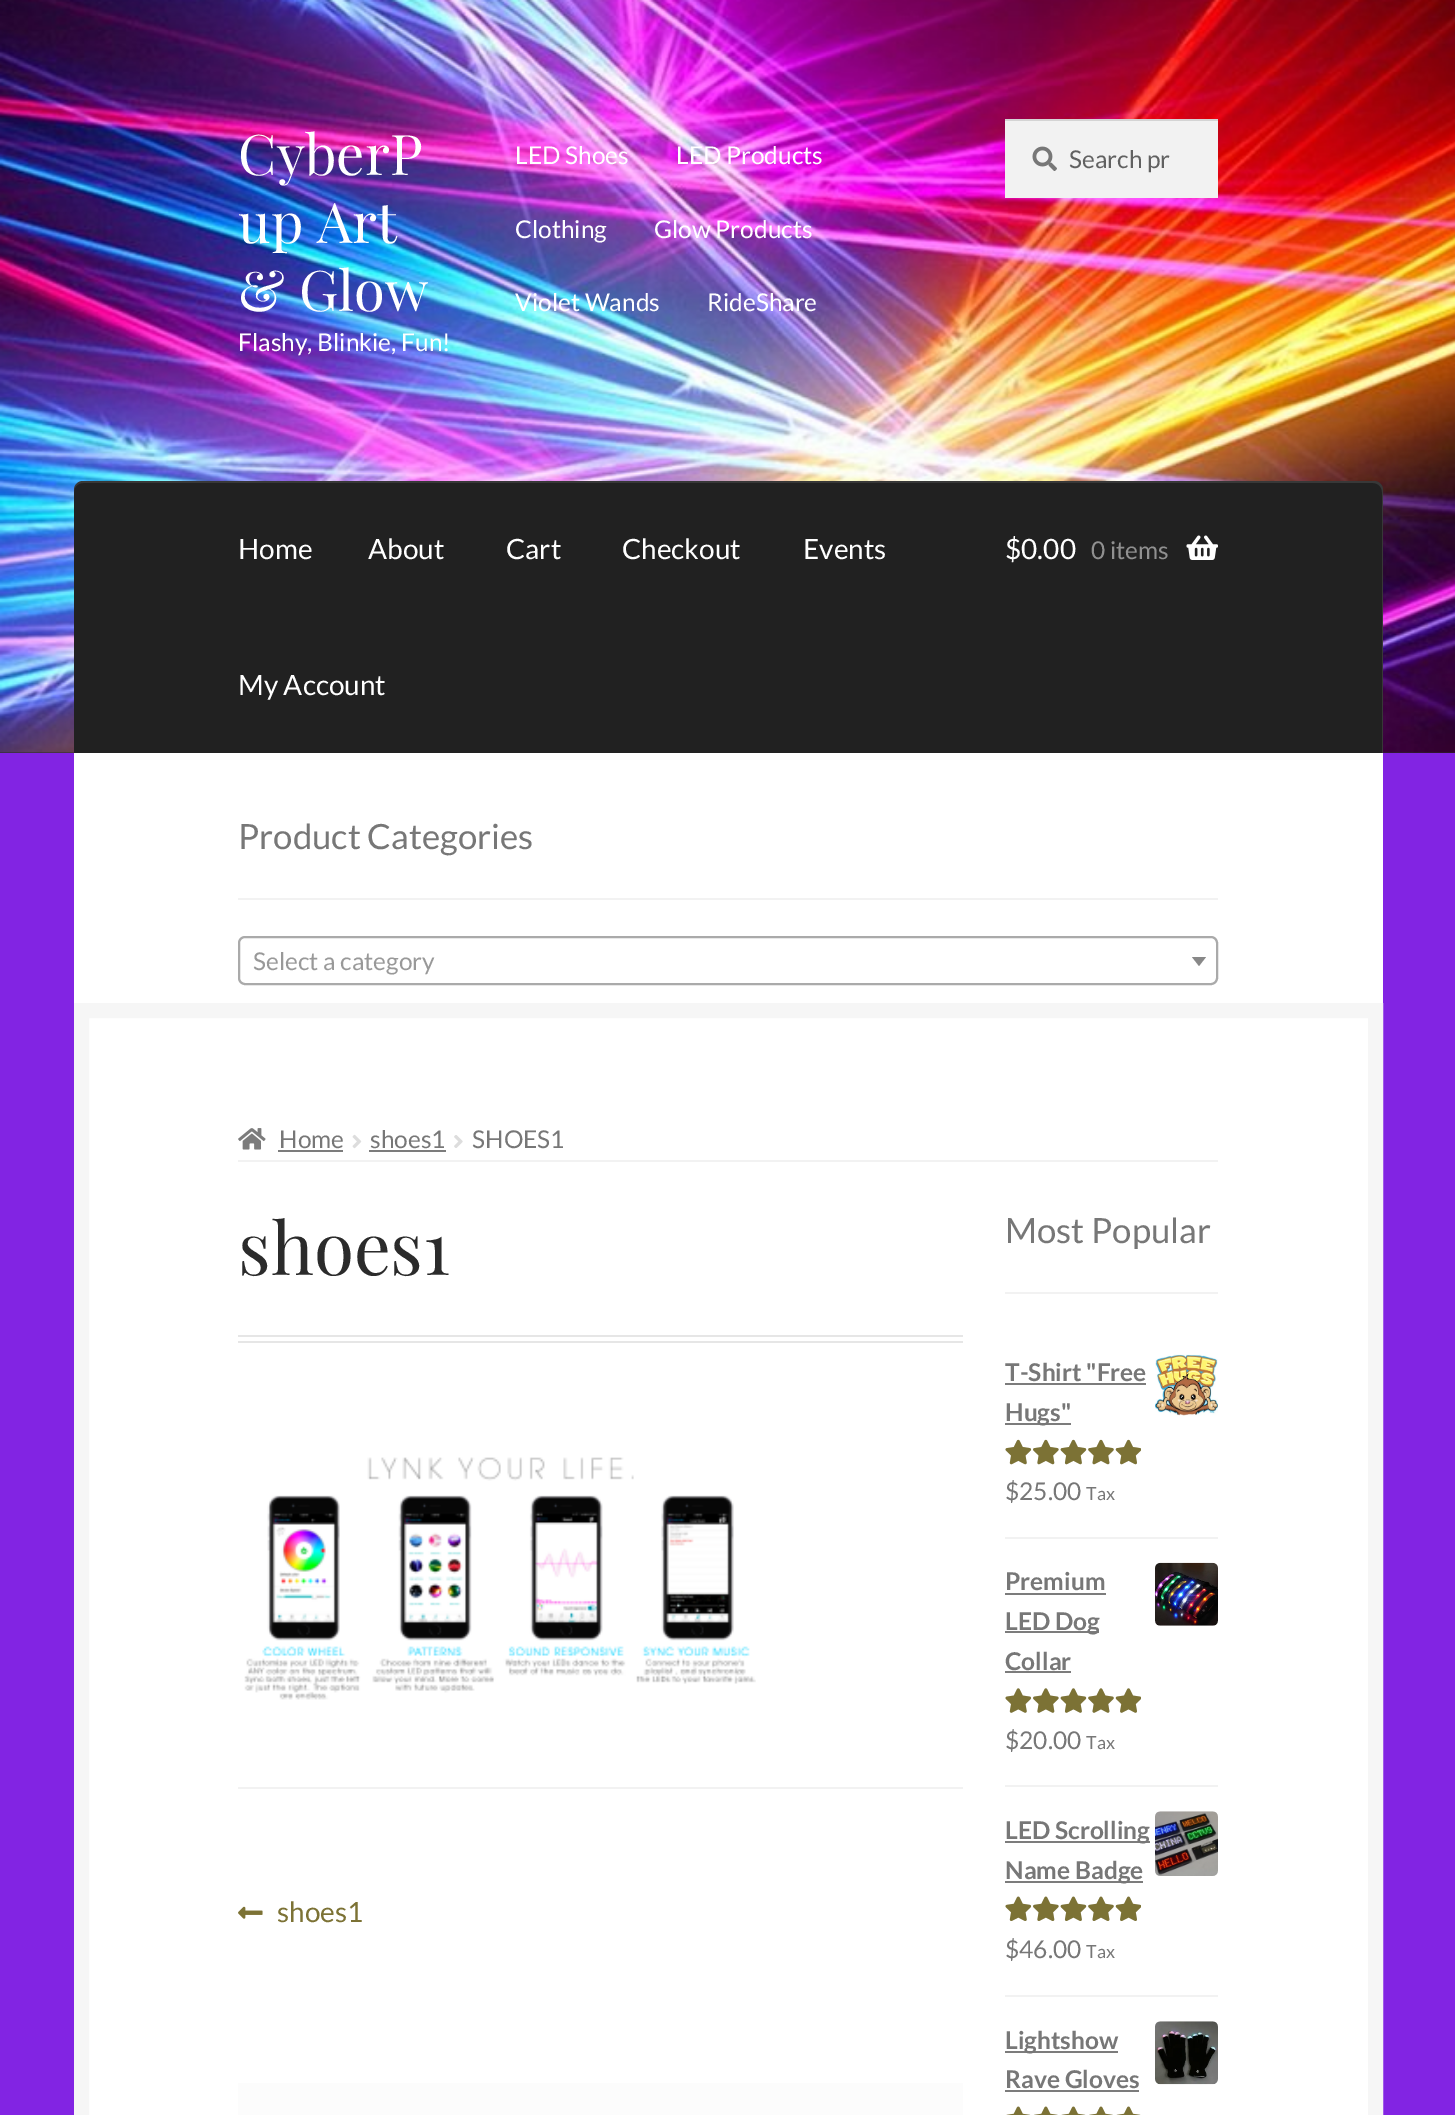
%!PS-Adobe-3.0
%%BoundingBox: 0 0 1455 2115
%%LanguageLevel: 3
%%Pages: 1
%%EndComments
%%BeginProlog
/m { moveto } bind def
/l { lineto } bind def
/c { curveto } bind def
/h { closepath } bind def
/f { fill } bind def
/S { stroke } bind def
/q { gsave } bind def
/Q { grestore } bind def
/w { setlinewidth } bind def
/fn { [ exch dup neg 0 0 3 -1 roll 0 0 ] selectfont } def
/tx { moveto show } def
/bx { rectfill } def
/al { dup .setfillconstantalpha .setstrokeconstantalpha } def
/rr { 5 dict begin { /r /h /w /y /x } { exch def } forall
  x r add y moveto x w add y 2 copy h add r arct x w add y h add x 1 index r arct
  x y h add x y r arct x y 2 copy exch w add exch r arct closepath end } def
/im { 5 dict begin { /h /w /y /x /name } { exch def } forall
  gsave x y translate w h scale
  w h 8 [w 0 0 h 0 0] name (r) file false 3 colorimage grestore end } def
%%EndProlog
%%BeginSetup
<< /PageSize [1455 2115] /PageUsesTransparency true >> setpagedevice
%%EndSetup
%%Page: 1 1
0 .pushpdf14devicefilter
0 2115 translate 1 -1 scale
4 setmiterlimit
0.51 0.141 0.89 setrgbcolor
0 0 1455 2115 bx
0.169 setgray
0 752 1455 1 bx
(image0.raw) 0 0 1455 753 im
/PlayfairDisplay-Regular 56 fn
1 setgray
(CyberP) 238 175 tx
(up Art) 238 243 tx
(& Glow) 238 311 tx
/Lato-Regular 24.5 fn
(Flashy, Blinkie, Fun!) 238 351 tx
(LED Shoes) 515 164 tx
(LED Products) 676 164 tx
(Clothing) 515 238 tx
(Glow Products) 654 238 tx
(Violet Wands) 515 311 tx
(RideShare) 707 311 tx
0.949 setgray
1005 121 213 77 bx
(image1.raw) 1032 146 25 25 im
0.831 setgray
1005 119 213 2 bx
0.38 setgray
(Search pr) 1069 168 tx
0.129 setgray
83 481 m 1374 481 l 1379 481 1383 485 1383 490 c 1383 753 l 74 753 l 74 490 l 74 485 78 481 83 481 c h f
0.1 al
1 setgray
83 483 m 1373 483 l 1378 483 1382 487 1382 492 c 1382 753 l 1383 753 l 1383 490 l 1383 485 1379 481 1374 481 c 83 481 l 78 481 74 485 74 490 c 74 492 l 74 487 78 483 83 483 c h f
/Lato-Regular 28 fn
1 al
(Home) 238 559 tx
(About) 368 559 tx
(Cart) 506 559 tx
(Checkout) 622 559 tx
(Events) 803 559 tx
(My Account) 238 695 tx
($0.00) 1005 559 tx
/Lato-Regular 24.5 fn
0.565 setgray
(0 items) 1091 559 tx
(image2.raw) 1186 535 32 25 im
1 setgray
74 753 1309 250 bx
0.949 setgray
238 898 980 2 bx
/Lato-Regular 34.75 fn
0.467 setgray
(Product Categories) 238 849 tx
0.667 setgray
2 w
239 937 978 47 6 rr S
/Lato-Regular 24.5 fn
0.6 setgray
(Select a category) 253 970 tx
0.533 setgray
1192 957 m 1206 957 l 1199 966 l h f
1 setgray
81.5 1010.5 m 1375.5 1010.5 l 1375.5 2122.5 l 81.5 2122.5 l h q f Q
0.965 setgray
15 w
S
0.949 setgray
238 1160 980 2 bx
(image3.raw) 238 1128 28 22 im
0.467 setgray
(Home) 279 1148 tx
0.486 setgray
278 1150 65 2 bx
(image4.raw) 352 1134 10 15 im
0.467 setgray
(shoes1) 370 1148 tx
0.486 setgray
369 1150 77 2 bx
(image5.raw) 454 1135 9 13 im
0.467 setgray
(SHOES1) 472 1148 tx
0.902 setgray
238 1335 725 2 bx
238 1341 725 2 bx
/PlayfairDisplay-Regular 73 fn
0.169 setgray
(shoes1) 238 1275 tx
(image6.raw) 244 1457 512 243 im
0.949 setgray
238 1787 725 2 bx
(image7.raw) 238 1906 25 13 im
/Lato-Regular 28 fn
0.486 0.447 0.208 setrgbcolor
(shoes1) 277 1922 tx
0.988 setgray
238 2083 725 32 bx
0.949 setgray
1005 1292 213 2 bx
/Lato-Regular 34.75 fn
0.467 setgray
(Most Popular) 1005 1243 tx
0.949 setgray
1005 1537 213 2 bx
/Lato-Bold 24.5 fn
0.467 setgray
(T-Shirt "Free) 1005 1381 tx
0.486 setgray
1005 1383 141 2 bx
(image8.raw) 1155 1354 63 62 im
1005 1423 66 2 bx
0.467 setgray
(Hugs") 1005 1421 tx
(image9.raw) 1005 1439 136 26 im
(image10.raw) 1005 1439 136 26 im
/Lato-Regular 24.5 fn
($25.00) 1005 1500 tx
/Lato-Regular 18 fn
(Tax) 1086 1500 tx
0.949 setgray
1005 1785 213 2 bx
/Lato-Bold 24.5 fn
0.467 setgray
(Premium) 1005 1590 tx
0.486 setgray
1005 1593 101 2 bx
(image11.raw) 1155 1562 63 64 im
1005 1631 94 2 bx
0.467 setgray
(LED Dog) 1005 1630 tx
(Collar) 1005 1670 tx
0.486 setgray
1005 1671 66 2 bx
(image12.raw) 1005 1688 136 25 im
(image13.raw) 1005 1688 136 25 im
/Lato-Regular 24.5 fn
0.467 setgray
($20.00) 1005 1749 tx
/Lato-Regular 18 fn
(Tax) 1086 1749 tx
0.949 setgray
1005 1995 213 2 bx
0.486 setgray
1005 1841 145 2 bx
/Lato-Bold 24.5 fn
0.467 setgray
(LED Scrolling) 1005 1839 tx
(image14.raw) 1155 1811 63 65 im
0.486 setgray
1005 1881 138 2 bx
0.467 setgray
(Name Badge) 1005 1879 tx
(image15.raw) 1005 1896 136 25 im
(image16.raw) 1005 1896 136 25 im
/Lato-Regular 24.5 fn
($46.00) 1005 1958 tx
/Lato-Regular 18 fn
(Tax) 1086 1958 tx
0.486 setgray
1005 2051 113 2 bx
/Lato-Bold 24.5 fn
0.467 setgray
(Lightshow) 1005 2049 tx
(image17.raw) 1155 2021 63 64 im
(Rave Gloves) 1005 2088 tx
0.486 setgray
1005 2090 134 2 bx
(image19.raw) 1007 2106 133 9 im
(image18.raw) 1006 2106 135 9 im
.poppdf14devicefilter showpage
%%EOF
